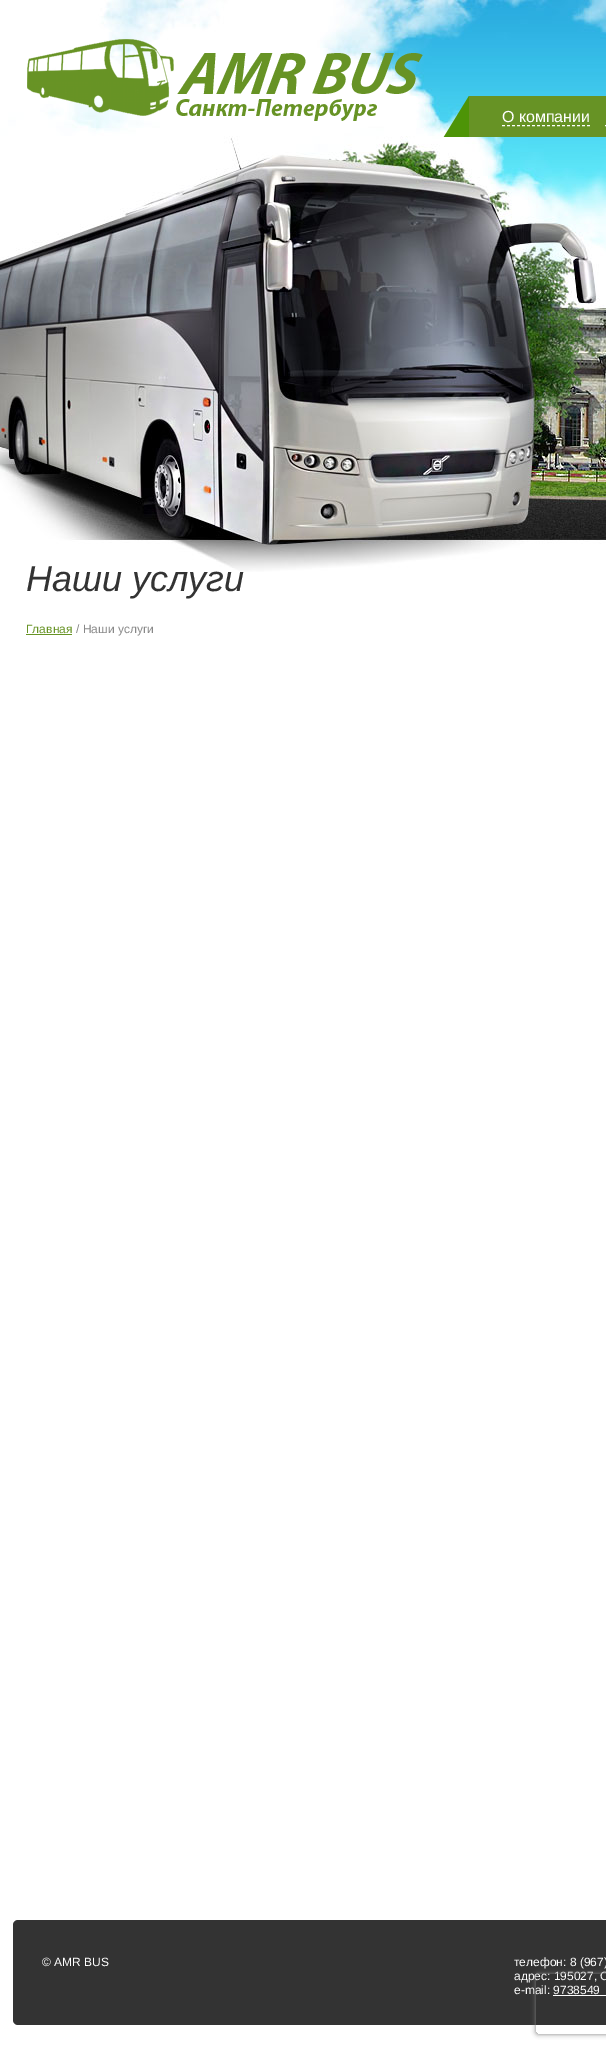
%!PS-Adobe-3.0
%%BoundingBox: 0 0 606 2048
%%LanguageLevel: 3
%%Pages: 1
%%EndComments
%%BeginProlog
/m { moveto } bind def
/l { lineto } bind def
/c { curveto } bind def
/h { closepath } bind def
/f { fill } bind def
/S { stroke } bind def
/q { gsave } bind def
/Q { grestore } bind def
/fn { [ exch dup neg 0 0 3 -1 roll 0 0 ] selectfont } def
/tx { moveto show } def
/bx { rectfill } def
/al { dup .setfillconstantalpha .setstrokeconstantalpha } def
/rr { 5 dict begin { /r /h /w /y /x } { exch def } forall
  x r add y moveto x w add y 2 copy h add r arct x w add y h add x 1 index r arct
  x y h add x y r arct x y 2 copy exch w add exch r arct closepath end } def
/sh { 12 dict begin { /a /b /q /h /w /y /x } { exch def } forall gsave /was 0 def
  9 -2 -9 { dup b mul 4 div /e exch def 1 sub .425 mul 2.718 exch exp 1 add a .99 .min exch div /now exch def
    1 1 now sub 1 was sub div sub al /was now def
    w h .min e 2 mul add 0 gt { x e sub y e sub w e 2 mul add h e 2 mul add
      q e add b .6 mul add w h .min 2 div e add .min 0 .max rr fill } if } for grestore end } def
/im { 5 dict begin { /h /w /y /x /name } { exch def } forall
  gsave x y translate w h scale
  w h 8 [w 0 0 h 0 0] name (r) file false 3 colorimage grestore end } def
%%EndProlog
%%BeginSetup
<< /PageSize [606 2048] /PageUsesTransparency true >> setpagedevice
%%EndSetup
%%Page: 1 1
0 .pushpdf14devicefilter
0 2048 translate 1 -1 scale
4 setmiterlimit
1 setgray
0 0 606 2048 bx
(image0.raw) 0 0 606 572 im
(image1.raw) 27 39 396 82 im
0.404 0.576 0.145 setrgbcolor
469 96 137 41 bx
(image2.raw) 443 96 26 41 im
/LiberationSans-Regular 16 fn
1 setgray
(О компании) 502 122 tx
[3 2] 0 setdash
502 125.5 m 590 125.5 l S
[3 2.04] 0 setdash
605 125.5 m 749 125.5 l S
/LiberationSans-Italic 36 fn
0.2 setgray
(Наши услуги) 26 591 tx
/LiberationSans-Regular 12 fn
0.404 0.576 0.145 setrgbcolor
(Главная) 26 633 tx
26 634 46 1 bx
0.533 setgray
(/ Наши услуги) 76 633 tx
0.2 setgray
13 1920 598 105 5 rr f
1 setgray
(© AMR BUS) 42 1966 tx
(телефон: 8 \(967\)) 514 1966 tx
(адрес: 195027, С) 514 1980 tx
(e-mail: 9738549) 514 1994 tx
553 1995 53 1 bx
q
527 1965 m 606 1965 l 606 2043 l 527 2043 l h 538 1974 m 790 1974 l 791 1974 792 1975 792 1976 c 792 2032 l 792 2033 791 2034 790 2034 c 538 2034 l 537 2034 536 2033 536 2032 c 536 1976 l 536 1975 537 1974 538 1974 c h eoclip newpath
0.502 setgray
536 1974 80 60 2 2.5 1 sh
Q
.poppdf14devicefilter showpage
%%EOF
